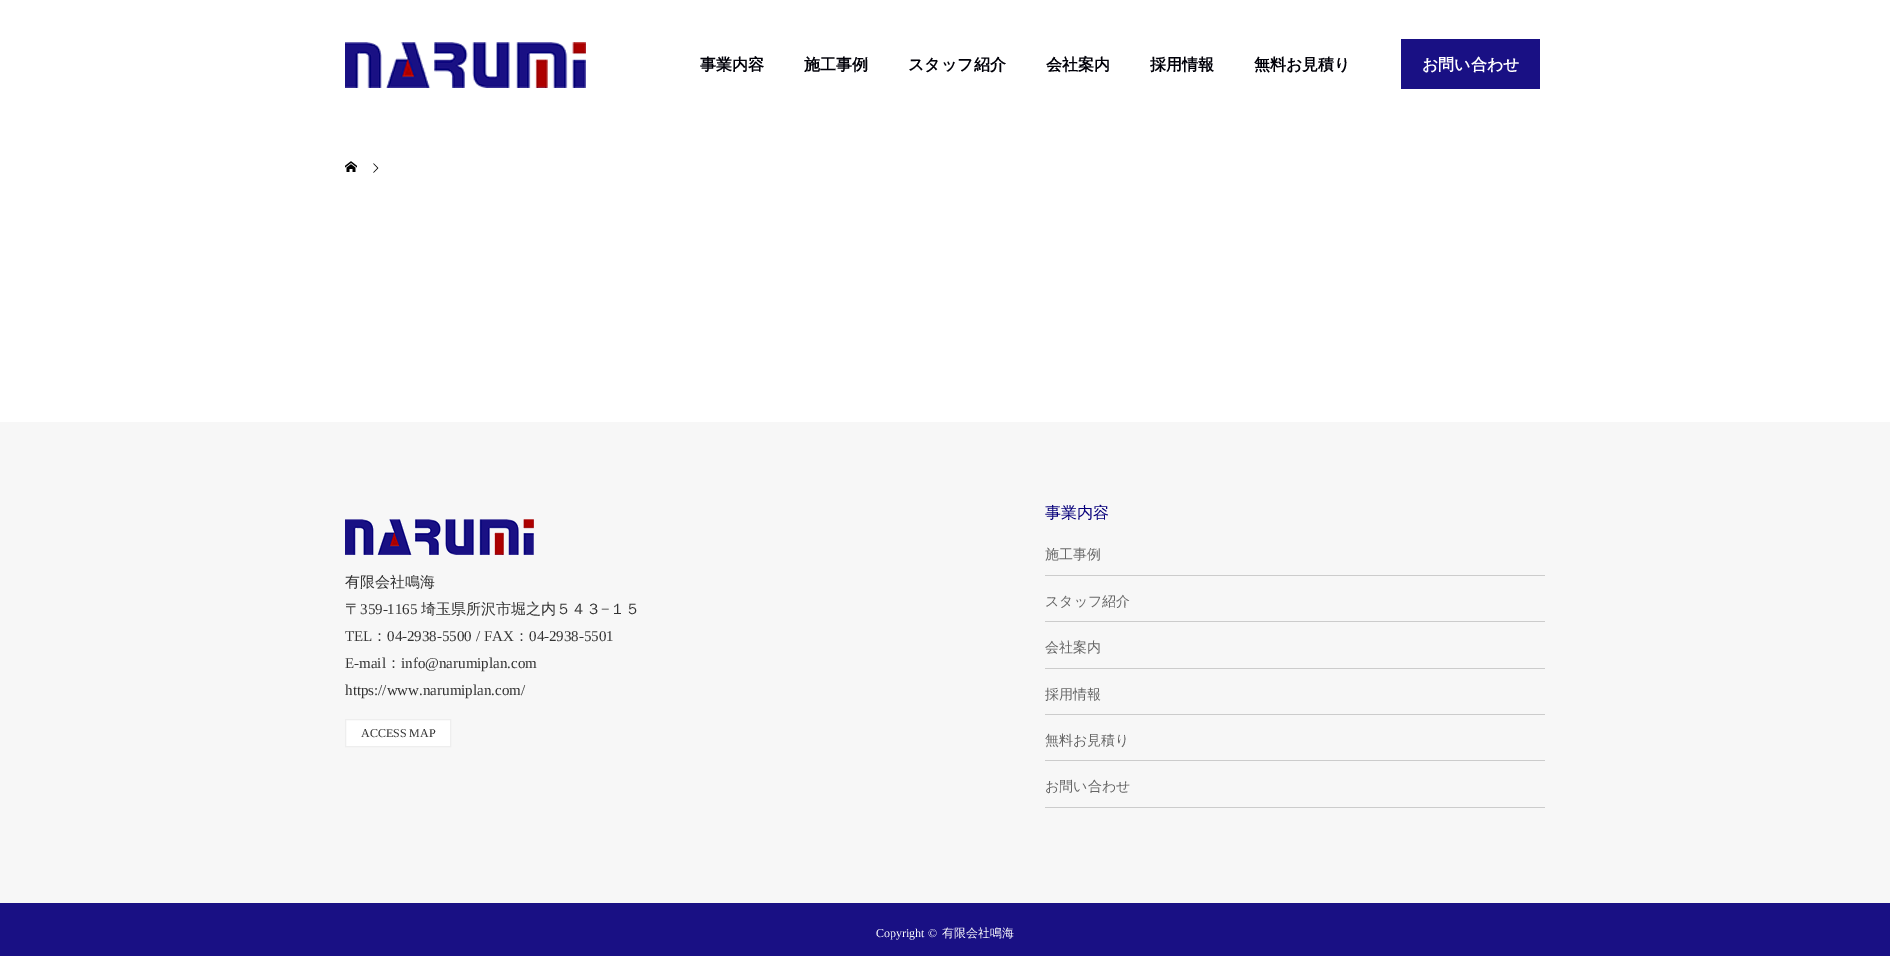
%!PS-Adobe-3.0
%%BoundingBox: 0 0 1890 956
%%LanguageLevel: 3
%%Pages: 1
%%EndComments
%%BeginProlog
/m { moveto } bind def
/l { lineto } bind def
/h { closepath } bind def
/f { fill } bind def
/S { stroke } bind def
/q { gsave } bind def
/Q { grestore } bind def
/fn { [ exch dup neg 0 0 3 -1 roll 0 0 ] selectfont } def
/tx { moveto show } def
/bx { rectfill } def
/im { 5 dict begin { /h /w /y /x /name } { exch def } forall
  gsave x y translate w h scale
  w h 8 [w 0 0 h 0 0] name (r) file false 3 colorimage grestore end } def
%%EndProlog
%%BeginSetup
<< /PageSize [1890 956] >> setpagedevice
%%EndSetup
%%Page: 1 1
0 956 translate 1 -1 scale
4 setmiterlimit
1 setgray
0 0 1890 956 bx
(image0.raw) 345 42 241 46 im
/WenQuanYiZenHei-Bold 16 fn
0 0 0.031 setrgbcolor
(事業内容) 700 70 tx
(施工事例) 804 70 tx
(スタッフ紹介) 908 70 tx
(会社案内) 1046 70 tx
(採用情報) 1150 70 tx
(無料お見積り) 1254 70 tx
0.098 0.063 0.518 setrgbcolor
1401 39 139 50 bx
1 setgray
(お問い合わせ) 1422 70 tx
(image1.raw) 345 161 12 11 im
(image2.raw) 373 163 6 10 im
0.969 setgray
0 422 1890 481 bx
(image3.raw) 345 519 189 36 im
/WenQuanYiZenHei-Medium 15 fn
0.2 setgray
(有限会社鳴海) 345 587 tx
(〒) 345 614 tx
/LiberationSerif-Regular 15 fn
(359-1165) 360 614 tx
/WenQuanYiZenHei-Medium 15 fn
(埼玉県所沢市堀之内５４３) 421 614 tx
/LiberationSerif-Regular 15 fn
(−) 601 614 tx
/WenQuanYiZenHei-Medium 15 fn
(１５) 610 614 tx
/LiberationSerif-Regular 15 fn
(TEL) 345 641 tx
/WenQuanYiZenHei-Medium 15 fn
(：) 372 641 tx
/LiberationSerif-Regular 15 fn
(04-2938-5500 / FAX) 387 641 tx
/WenQuanYiZenHei-Medium 15 fn
(：) 514 641 tx
/LiberationSerif-Regular 15 fn
(04-2938-5501) 529 641 tx
(E-mail) 345 668 tx
/WenQuanYiZenHei-Medium 15 fn
(：) 386 668 tx
/LiberationSerif-Regular 15 fn
(info@narumiplan.com) 401 668 tx
(https://www.narumiplan.com/) 345 695 tx
1 setgray
345.5 719.5 m 450.5 719.5 l 450.5 746.5 l 345.5 746.5 l h q f Q
0.933 setgray
S
/LiberationSerif-Regular 12 fn
0.2 setgray
(ACCESS MAP) 361 737 tx
/WenQuanYiZenHei-Medium 16 fn
0.027 0 0.482 setrgbcolor
(事業内容) 1045 518 tx
0.8 setgray
1045 575 500 1 bx
/WenQuanYiZenHei-Medium 14 fn
0.4 setgray
(施工事例) 1045 559 tx
0.8 setgray
1045 621 500 1 bx
0.4 setgray
(スタッフ紹介) 1045 606 tx
0.8 setgray
1045 668 500 1 bx
0.4 setgray
(会社案内) 1045 652 tx
0.8 setgray
1045 714 500 1 bx
0.4 setgray
(採用情報) 1045 699 tx
0.8 setgray
1045 760 500 1 bx
0.4 setgray
(無料お見積り) 1045 745 tx
0.8 setgray
1045 807 500 1 bx
0.4 setgray
(お問い合わせ) 1045 791 tx
0.098 0.063 0.518 setrgbcolor
0 903 1890 53 bx
/LiberationSerif-Regular 12 fn
1 setgray
(Copyright ©) 876 937 tx
/WenQuanYiZenHei-Medium 12 fn
(有限会社鳴海) 942 937 tx
showpage
%%EOF
